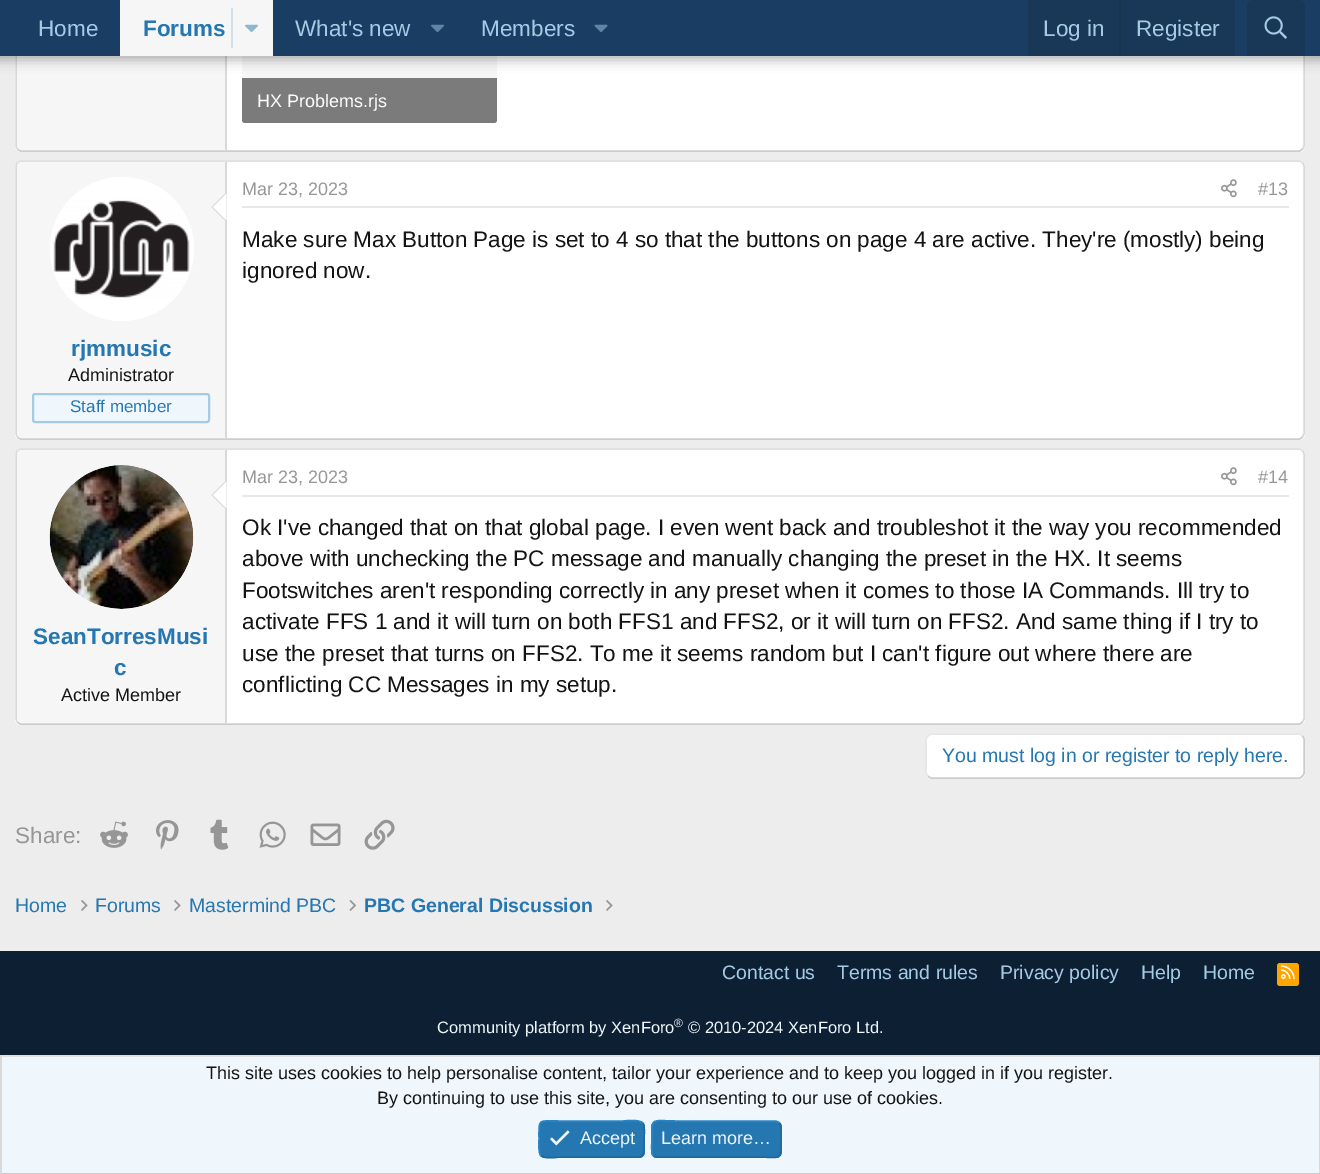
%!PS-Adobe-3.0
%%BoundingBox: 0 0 1320 1174
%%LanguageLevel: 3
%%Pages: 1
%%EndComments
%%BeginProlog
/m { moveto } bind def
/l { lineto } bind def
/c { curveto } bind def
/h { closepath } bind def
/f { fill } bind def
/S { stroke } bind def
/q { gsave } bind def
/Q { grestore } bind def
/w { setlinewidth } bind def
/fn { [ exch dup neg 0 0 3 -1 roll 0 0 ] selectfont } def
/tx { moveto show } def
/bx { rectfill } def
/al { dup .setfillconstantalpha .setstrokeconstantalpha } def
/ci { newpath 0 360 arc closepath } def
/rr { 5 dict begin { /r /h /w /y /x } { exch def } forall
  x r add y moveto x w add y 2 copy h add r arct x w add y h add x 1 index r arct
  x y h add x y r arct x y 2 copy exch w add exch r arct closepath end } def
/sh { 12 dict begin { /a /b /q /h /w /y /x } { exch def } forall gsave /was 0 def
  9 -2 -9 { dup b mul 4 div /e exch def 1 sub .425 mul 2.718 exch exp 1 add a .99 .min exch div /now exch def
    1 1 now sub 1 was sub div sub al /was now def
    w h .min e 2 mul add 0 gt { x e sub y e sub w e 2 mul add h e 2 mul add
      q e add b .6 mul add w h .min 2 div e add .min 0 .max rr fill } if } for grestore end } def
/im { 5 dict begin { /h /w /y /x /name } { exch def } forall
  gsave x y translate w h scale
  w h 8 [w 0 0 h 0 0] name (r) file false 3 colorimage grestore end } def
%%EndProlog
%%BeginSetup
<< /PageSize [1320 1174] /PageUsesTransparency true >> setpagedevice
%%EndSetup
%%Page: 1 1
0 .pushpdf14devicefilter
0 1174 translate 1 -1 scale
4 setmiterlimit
0.929 setgray
0 0 1320 1174 bx
1 setgray
15 -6 1290 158 6 rr f
0.851 setgray
1.5 w
1302.5 -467 m 1303.5 -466 1304 -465 1304 -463.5 c 1304 145.5 l 1304 147 1303.5 148 1302.5 149 c S
0.8 setgray
1302.5 149 m 1301.5 150 1300.5 151 1299 151 c 21 151 l 19.5 151 18.5 150 17.5 149 c S
0.851 setgray
17.5 149 m 16.5 148 16 147 16 145.5 c 16 -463.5 l 16 -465 16.5 -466 17.5 -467 c S
0.965 setgray
22 -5 m 227 -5 l 227 150 l 22 150 l 19 150 17 148 17 145 c 17 0 l 17 -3 19 -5 22 -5 c h f
0.851 setgray
225 56 2 94 bx
0.965 setgray
242 -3 255 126 3 rr f
0.5 al
0 setgray
242 78 m 497 78 l 497 120 l 497 121.5 495.5 123 494 123 c 245 123 l 243.5 123 242 121.5 242 120 c h f
1 al
-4 -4 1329 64 0 6 0.3 sh
0.102 0.243 0.388 setrgbcolor
0 0 1320 56 bx
/LiberationSans-Regular 22.5 fn
0.647 0.792 0.894 setrgbcolor
(Home) 38 36 tx
0.965 setgray
120 0 153 56 bx
/LiberationSans-Bold 22.5 fn
0.145 0.467 0.694 setrgbcolor
(Forums) 143 36 tx
0.824 0.878 0.918 setrgbcolor
231 8 2 40 bx
(image0.raw) 245 24 13 9 im
/LiberationSans-Regular 22.5 fn
0.647 0.792 0.894 setrgbcolor
(What's new) 295 36 tx
(image1.raw) 431 24 13 9 im
(Members) 481 36 tx
(image2.raw) 594 24 14 8 im
0.098 0.22 0.341 setrgbcolor
1028 0 207 56 bx
0.647 0.792 0.894 setrgbcolor
(Log in) 1043 36 tx
0.094 0.2 0.302 setrgbcolor
1119 0 2 56 bx
0.647 0.792 0.894 setrgbcolor
(Register) 1136 36 tx
0.098 0.22 0.341 setrgbcolor
1253 0 m 1299 0 l 1302.5 0 1305 2.5 1305 6 c 1305 56 l 1247 56 l 1247 6 l 1247 2.5 1249.5 0 1253 0 c h f
(image3.raw) 1264 16 23 23 im
/LiberationSans-Regular 18 fn
1 setgray
(HX Problems.rjs) 257 107 tx
15 161 1290 279 6 rr f
0.878 setgray
17.5 163 m 18.5 162 19.5 161 21 161 c 1299 161 l 1300.5 161 1301.5 162 1302.5 163 c S
0.851 setgray
1302.5 163 m 1303.5 164 1304 165 1304 166.5 c 1304 434 l 1302.5 437 l S
0.8 setgray
1302.5 437 m 1301.5 438 1300.5 439 1299 439 c 21 439 l 19.5 439 18.5 438 17.5 437 c S
0.851 setgray
17.5 437 m 16 434 l 16 166.5 l 16 165 16.5 164 17.5 163 c S
0.91 setgray
242 206 1047 2 bx
0.588 setgray
(Mar 23, 2023) 242 195 tx
(image4.raw) 1221 179 16 19 im
(#13) 1258 195 tx
/LiberationSans-Regular 22.5 fn
0.078 setgray
(Make sure Max Button Page is set to 4 so that the buttons on page 4 are active. They're \(mostly\) being) 242 247 tx
(ignored now.) 242 278 tx
0.965 setgray
22 162 m 227 162 l 227 438 l 22 438 l 19 438 17 436 17 433 c 17 167 l 17 164 19 162 22 162 c h f
0.851 setgray
225 162 2 276 bx
1 setgray
122 249 72 ci f
(image5.raw) 50 200 140 98 im
0.851 setgray
226.5 192 m 226.5 222 l 211.5 207 l h f
1 setgray
226.5 193.5 m 226.5 220.5 l 213 207 l h f
/LiberationSans-Bold 22.5 fn
0.145 0.467 0.694 setrgbcolor
(rjmmusic) 71 356 tx
/LiberationSans-Regular 18 fn
0.078 setgray
(Administrator) 68 381 tx
0.941 0.969 0.988 setrgbcolor
33 394 176 28 2 rr q f Q
0.647 0.792 0.894 setrgbcolor
2 w
S
/LiberationSans-Regular 17 fn
0.145 0.467 0.694 setrgbcolor
(Staff member) 70 412 tx
1 setgray
15 449 1290 276 6 rr f
0.878 setgray
1.5 w
17.5 451 m 18.5 450 19.5 449 21 449 c 1299 449 l 1300.5 449 1301.5 450 1302.5 451 c S
0.851 setgray
1302.5 451 m 1303.5 452 1304 453 1304 454.5 c 1304 719 l 1302.5 722 l S
0.8 setgray
1302.5 722 m 1301.5 723 1300.5 724 1299 724 c 21 724 l 19.5 724 18.5 723 17.5 722 c S
0.851 setgray
17.5 722 m 16 719 l 16 454.5 l 16 453 16.5 452 17.5 451 c S
0.965 setgray
22 450 m 227 450 l 227 723 l 22 723 l 19 723 17 721 17 718 c 17 455 l 17 452 19 450 22 450 c h f
0.851 setgray
225 450 2 273 bx
1 setgray
122 537 72 ci f
(image6.raw) 49 465 145 144 im
0.851 setgray
226.5 480 m 226.5 510 l 211.5 495 l h f
1 setgray
226.5 481.5 m 226.5 508.5 l 213 495 l h f
/LiberationSans-Bold 22.5 fn
0.145 0.467 0.694 setrgbcolor
(SeanTorresMusi) 33 644 tx
(c) 114 675 tx
/LiberationSans-Regular 18 fn
0.078 setgray
(Active Member) 61 701 tx
0.91 setgray
242 495 1047 2 bx
0.588 setgray
(Mar 23, 2023) 242 483 tx
(image4.raw) 1221 467 16 19 im
(#14) 1258 483 tx
/LiberationSans-Regular 22.5 fn
0.078 setgray
(Ok I've changed that on that global page. I even went back and troubleshot it the way you recommended) 242 535 tx
(above with unchecking the PC message and manually changing the preset in the HX. It seems) 242 566 tx
(Footswitches aren't responding correctly in any preset when it comes to those IA Commands. Ill try to) 242 598 tx
(activate FFS 1 and it will turn on both FFS1 and FFS2, or it will turn on FFS2. And same thing if I try to) 242 629 tx
(use the preset that turns on FFS2. To me it seems random but I can't figure out where there are) 242 661 tx
(conflicting CC Messages in my setup.) 242 692 tx
1 setgray
926 734 379 45 6 rr f
0.8 setgray
1302.5 736 m 1303.5 737 1304 738 1304 739.5 c 1304 772.5 l 1304 774 1303.5 775 1302.5 776 c 1301.5 777 1300.5 778 1299 778 c 931.5 778 l 930 778 929 777 928 776 c S
0.902 setgray
928 776 m 927 775 926 774 926 772.5 c 926 739.5 l 926 738 927 737 928 736 c 929 735 930 734 931.5 734 c 1299 734 l 1300.5 734 1301.5 735 1302.5 736 c S
/LiberationSans-Regular 19.5 fn
0.145 0.467 0.694 setrgbcolor
(You must log in or register to reply here.) 942 762 tx
/LiberationSans-Regular 22.5 fn
0.588 setgray
(Share:) 15 843 tx
(image7.raw) 100 821 28 27 im
(image8.raw) 156 820 23 30 im
(image9.raw) 210 819 19 31 im
(image10.raw) 259 821 27 27 im
(image11.raw) 310 823 31 23 im
(image12.raw) 364 819 31 31 im
/LiberationSans-Regular 19.5 fn
0.145 0.467 0.694 setrgbcolor
(Home) 15 912 tx
(image13.raw) 81 900 7 11 im
(Forums) 95 912 tx
(image13.raw) 174 900 7 11 im
(Mastermind PBC) 189 912 tx
(image14.raw) 349 900 7 11 im
/LiberationSans-Bold 19.5 fn
(PBC General Discussion) 364 912 tx
(image13.raw) 606 900 7 11 im
0.051 0.125 0.2 setrgbcolor
0 951 1320 104 bx
/LiberationSans-Regular 19.5 fn
0.647 0.792 0.894 setrgbcolor
(Contact us) 722 979 tx
(Terms and rules) 837 979 tx
(Privacy policy) 1000 979 tx
(Help) 1141 979 tx
(Home) 1203 979 tx
1 0.647 0 setrgbcolor
1277 963 22 23 3 rr f
(image15.raw) 1281 965 14 14 im
/LiberationSans-Regular 16.5 fn
0.941 0.969 0.988 setrgbcolor
(Community platform by XenForo) 437 1033 tx
/LiberationSans-Regular 12 fn
(®) 674 1027 tx
/LiberationSans-Regular 16.5 fn
(© 2010-2024 XenForo Ltd.) 688 1033 tx
2 1057 1317 116 bx
0.878 setgray
0 1055 1320 2 bx
0.851 setgray
1319 1055 1 119 bx
0.8 setgray
0 1173 1320 1 bx
0.851 setgray
0 1055 2 119 bx
/LiberationSans-Regular 18 fn
0.078 setgray
(This site uses cookies to help personalise content, tailor your experience and to keep you logged in if you register.) 206 1079 tx
(By continuing to use this site, you are consenting to our use of cookies.) 377 1104 tx
0.145 0.467 0.694 setrgbcolor
539 1121 106 37 6 rr f
0.129 0.412 0.612 setrgbcolor
642.5 1123 m 645.5 1125.5 644 1135.5 644 1139 c 644 1160.5 646 1157 623 1157 c 560 1157 l 558.5 1157 544.5 1159.5 541 1155.5 c S
0.161 0.522 0.776 setrgbcolor
541 1155.5 m 538 1153 539 1143 539 1139 c 539 1118 537.5 1121 560 1121 c 623 1121 l 625 1121 639 1119 642.5 1123 c S
(image16.raw) 550 1130 20 16 im
0.941 0.969 0.988 setrgbcolor
(Accept) 580 1144 tx
0.145 0.467 0.694 setrgbcolor
651 1121 131 37 6 rr f
0.129 0.412 0.612 setrgbcolor
779 1123 m 782 1125.5 781 1135.5 781 1139 c 781 1162 782 1157 756 1157 c 657 1157 l 655.5 1157 654.5 1156.5 653.5 1155.5 c S
0.161 0.522 0.776 setrgbcolor
653.5 1155.5 m 650.5 1153 652 1143 652 1139 c 652 1116.5 650.5 1121 677 1121 c 775.5 1121 l 777 1121.5 778 1122 779 1123 c S
0.941 0.969 0.988 setrgbcolor
(Learn more…) 661 1144 tx
.poppdf14devicefilter showpage
%%EOF
